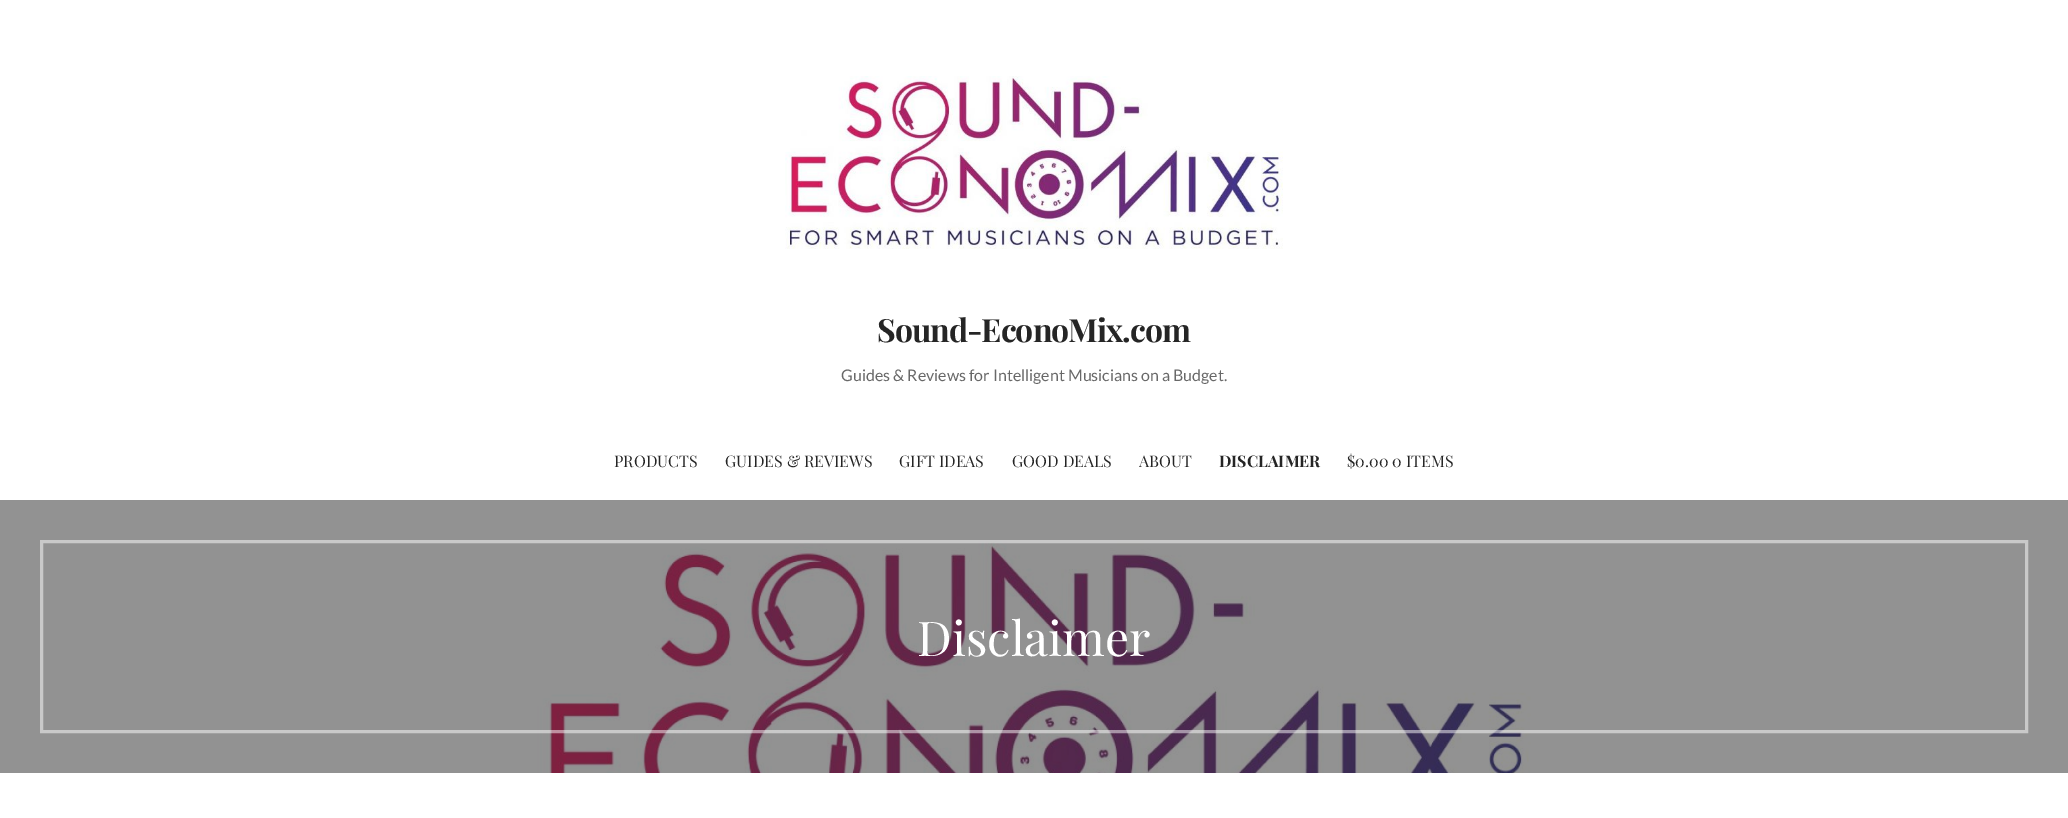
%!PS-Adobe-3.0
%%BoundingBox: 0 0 2068 818
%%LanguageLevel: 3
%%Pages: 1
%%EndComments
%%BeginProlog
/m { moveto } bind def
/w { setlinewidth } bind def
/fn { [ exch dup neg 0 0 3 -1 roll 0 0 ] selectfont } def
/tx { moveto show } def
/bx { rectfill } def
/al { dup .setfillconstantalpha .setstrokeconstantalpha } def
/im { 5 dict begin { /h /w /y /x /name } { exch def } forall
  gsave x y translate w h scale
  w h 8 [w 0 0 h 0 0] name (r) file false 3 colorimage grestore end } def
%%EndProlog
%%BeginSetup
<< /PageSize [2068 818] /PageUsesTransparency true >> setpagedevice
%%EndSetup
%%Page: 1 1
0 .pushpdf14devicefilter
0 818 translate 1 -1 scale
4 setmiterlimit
1 setgray
0 0 2068 818 bx
(image0.raw) 785 76 498 173 im
/PlayfairDisplay-Bold 32 fn
0.145 setgray
877 342 m -1 0 (Sound-EconoMix.com) ashow
/Lato-Regular 16 fn
0.408 setgray
(Guides & Reviews for Intelligent Musicians on a Budget.) 841 381 tx
/PlayfairDisplay-Regular 16 fn
0.145 setgray
(PRODUCTS) 614 467 tx
(GUIDES & REVIEWS) 725 467 tx
(GIFT IDEAS) 899 467 tx
(GOOD DEALS) 1012 467 tx
(ABOUT) 1139 467 tx
/PlayfairDisplay-Bold 16 fn
(DISCLAIMER) 1219 467 tx
/PlayfairDisplay-Regular 16 fn
($0.00 0 ITEMS) 1347 467 tx
(image1.raw) 0 500 2068 273 im
0.5 al
1 setgray
3 w
41.5 541.5 1985 190 rectstroke
/PlayfairDisplay-Regular 48 fn
1 al
(Disclaimer) 917 656 tx
.poppdf14devicefilter showpage
%%EOF
